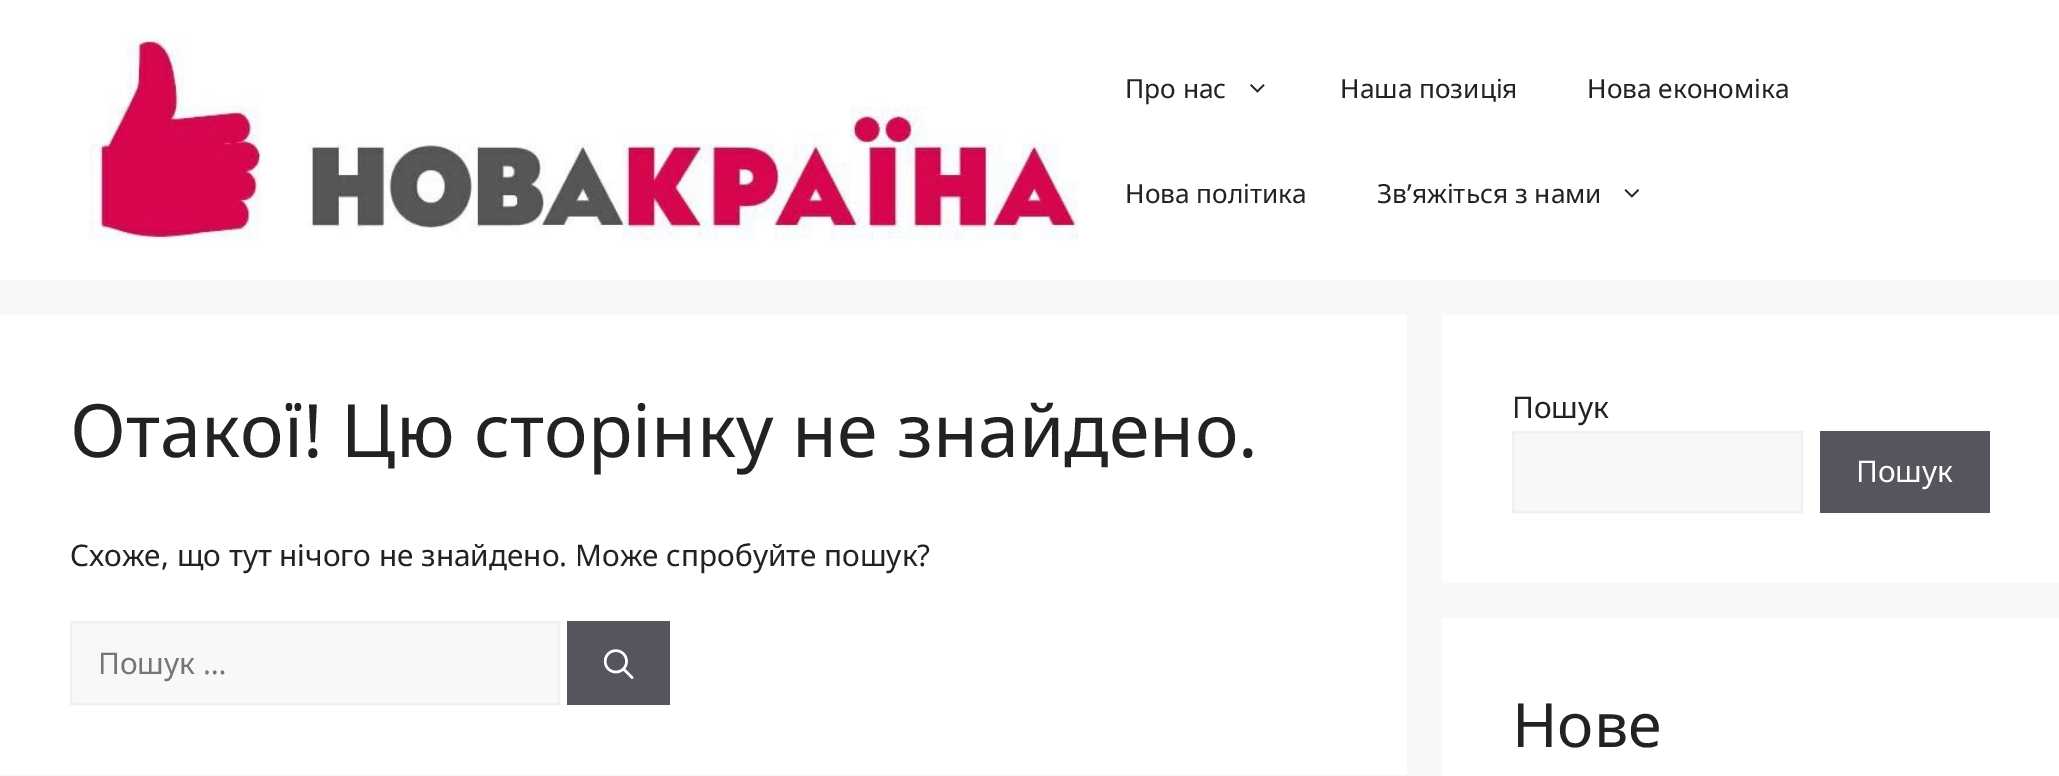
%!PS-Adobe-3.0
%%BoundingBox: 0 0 2059 776
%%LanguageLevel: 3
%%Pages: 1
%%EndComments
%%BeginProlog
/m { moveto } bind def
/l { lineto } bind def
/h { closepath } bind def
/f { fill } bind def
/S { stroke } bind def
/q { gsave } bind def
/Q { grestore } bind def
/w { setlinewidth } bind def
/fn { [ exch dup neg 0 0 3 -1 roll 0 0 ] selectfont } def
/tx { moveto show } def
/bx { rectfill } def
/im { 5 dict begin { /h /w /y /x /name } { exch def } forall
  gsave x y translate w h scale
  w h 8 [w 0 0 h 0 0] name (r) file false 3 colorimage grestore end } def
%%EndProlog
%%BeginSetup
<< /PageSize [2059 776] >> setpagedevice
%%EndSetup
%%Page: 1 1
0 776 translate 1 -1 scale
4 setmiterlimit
0.969 0.973 0.976 setrgbcolor
0 0 2059 776 bx
1 setgray
0 0 2059 280 bx
(image0.raw) 89 38 990 204 im
/NotoSans-Regular 26.25 fn
0.133 setgray
(Про нас) 1125 98 tx
(image1.raw) 1250 84 15 9 im
(Наша позиція) 1340 98 tx
(Нова економіка) 1587 98 tx
(Нова політика) 1125 203 tx
(Зв’яжіться з нами) 1377 203 tx
(image2.raw) 1624 189 16 9 im
1 setgray
0 315 1407 460 bx
/NotoSans-Regular 73.5 fn
0.133 setgray
(Отакої! Цю сторінку не знайдено.) 70 457 tx
/NotoSans-Regular 29.75 fn
(Схоже, що тут нічого не знайдено. Може спробуйте пошук?) 70 566 tx
0.969 0.973 0.976 setrgbcolor
71 622 m 559 622 l 559 704 l 71 704 l h q f Q
0.941 setgray
2 w
S
0.459 setgray
(Пошук …) 98 674 tx
0.333 0.333 0.369 setrgbcolor
567 621 103 84 bx
(image3.raw) 604 649 30 30 im
1 setgray
1442 315 617 268 bx
0.133 setgray
(Пошук) 1512 418 tx
0.969 0.973 0.976 setrgbcolor
1513 432 m 1802 432 l 1802 512 l 1513 512 l h q f Q
0.941 setgray
S
0.333 0.333 0.369 setrgbcolor
1820 431 170 82 bx
1 setgray
(Пошук) 1856 482 tx
1442 618 617 158 bx
/NotoSans-Regular 61 fn
0.133 setgray
(Нове) 1512 747 tx
showpage
%%EOF
